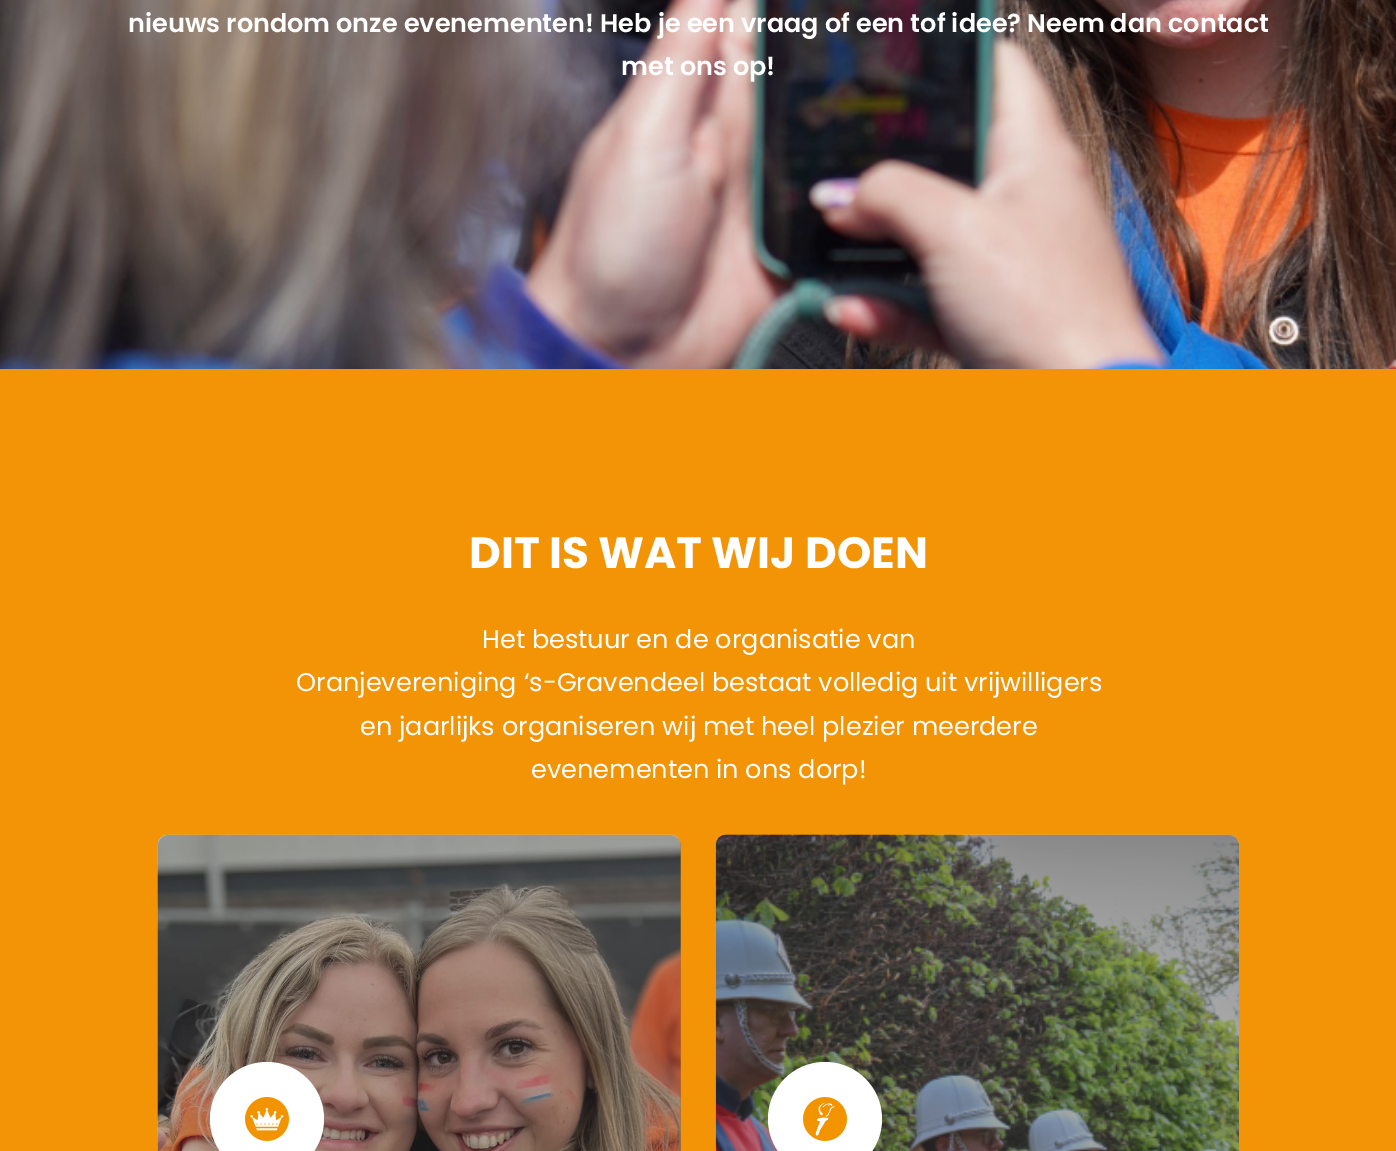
%!PS-Adobe-3.0
%%BoundingBox: 0 0 1396 1151
%%LanguageLevel: 3
%%Pages: 1
%%EndComments
%%BeginProlog
/f { fill } bind def
/fn { [ exch dup neg 0 0 3 -1 roll 0 0 ] selectfont } def
/tx { moveto show } def
/bx { rectfill } def
/al { dup .setfillconstantalpha .setstrokeconstantalpha } def
/ci { newpath 0 360 arc closepath } def
/rr { 5 dict begin { /r /h /w /y /x } { exch def } forall
  x r add y moveto x w add y 2 copy h add r arct x w add y h add x 1 index r arct
  x y h add x y r arct x y 2 copy exch w add exch r arct closepath end } def
/im { 5 dict begin { /h /w /y /x /name } { exch def } forall
  gsave x y translate w h scale
  w h 8 [w 0 0 h 0 0] name (r) file false 3 colorimage grestore end } def
%%EndProlog
%%BeginSetup
<< /PageSize [1396 1151] /PageUsesTransparency true >> setpagedevice
%%EndSetup
%%Page: 1 1
0 .pushpdf14devicefilter
0 1151 translate 1 -1 scale
4 setmiterlimit
1 setgray
0 0 1396 1151 bx
(image0.raw) 0 0 1396 369 im
/Poppins-SemiBold 25.55 fn
(nieuws rondom onze evenementen! Heb je een vraag of een tof idee? Neem dan contact) 128 32 tx
(met ons op!) 621 75 tx
0.953 0.576 0.024 setrgbcolor
0 369 1396 782 bx
/Poppins-Bold 43.75 fn
1 setgray
(DIT IS WAT WIJ DOEN) 469 568 tx
/Poppins-Regular 25.55 fn
(Het bestuur en de organisatie van) 482 648 tx
(Oranjevereniging ‘s-Gravendeel bestaat volledig uit vrijwilligers) 296 691 tx
(en jaarlijks organiseren wij met heel plezier meerdere) 360 735 tx
(evenementen in ons dorp!) 531 778 tx
(image1.raw) 157 834 524 317 im
0.34 al
0.259 setgray
158 835 523 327 11 rr f
1 al
1 setgray
267 1119 57 ci f
(image2.raw) 245 1097 44 44 im
(image3.raw) 715 834 524 317 im
0.42 al
0.259 setgray
716 835 523 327 11 rr f
1 al
1 setgray
825 1119 57 ci f
(image4.raw) 803 1097 44 44 im
.poppdf14devicefilter showpage
%%EOF
